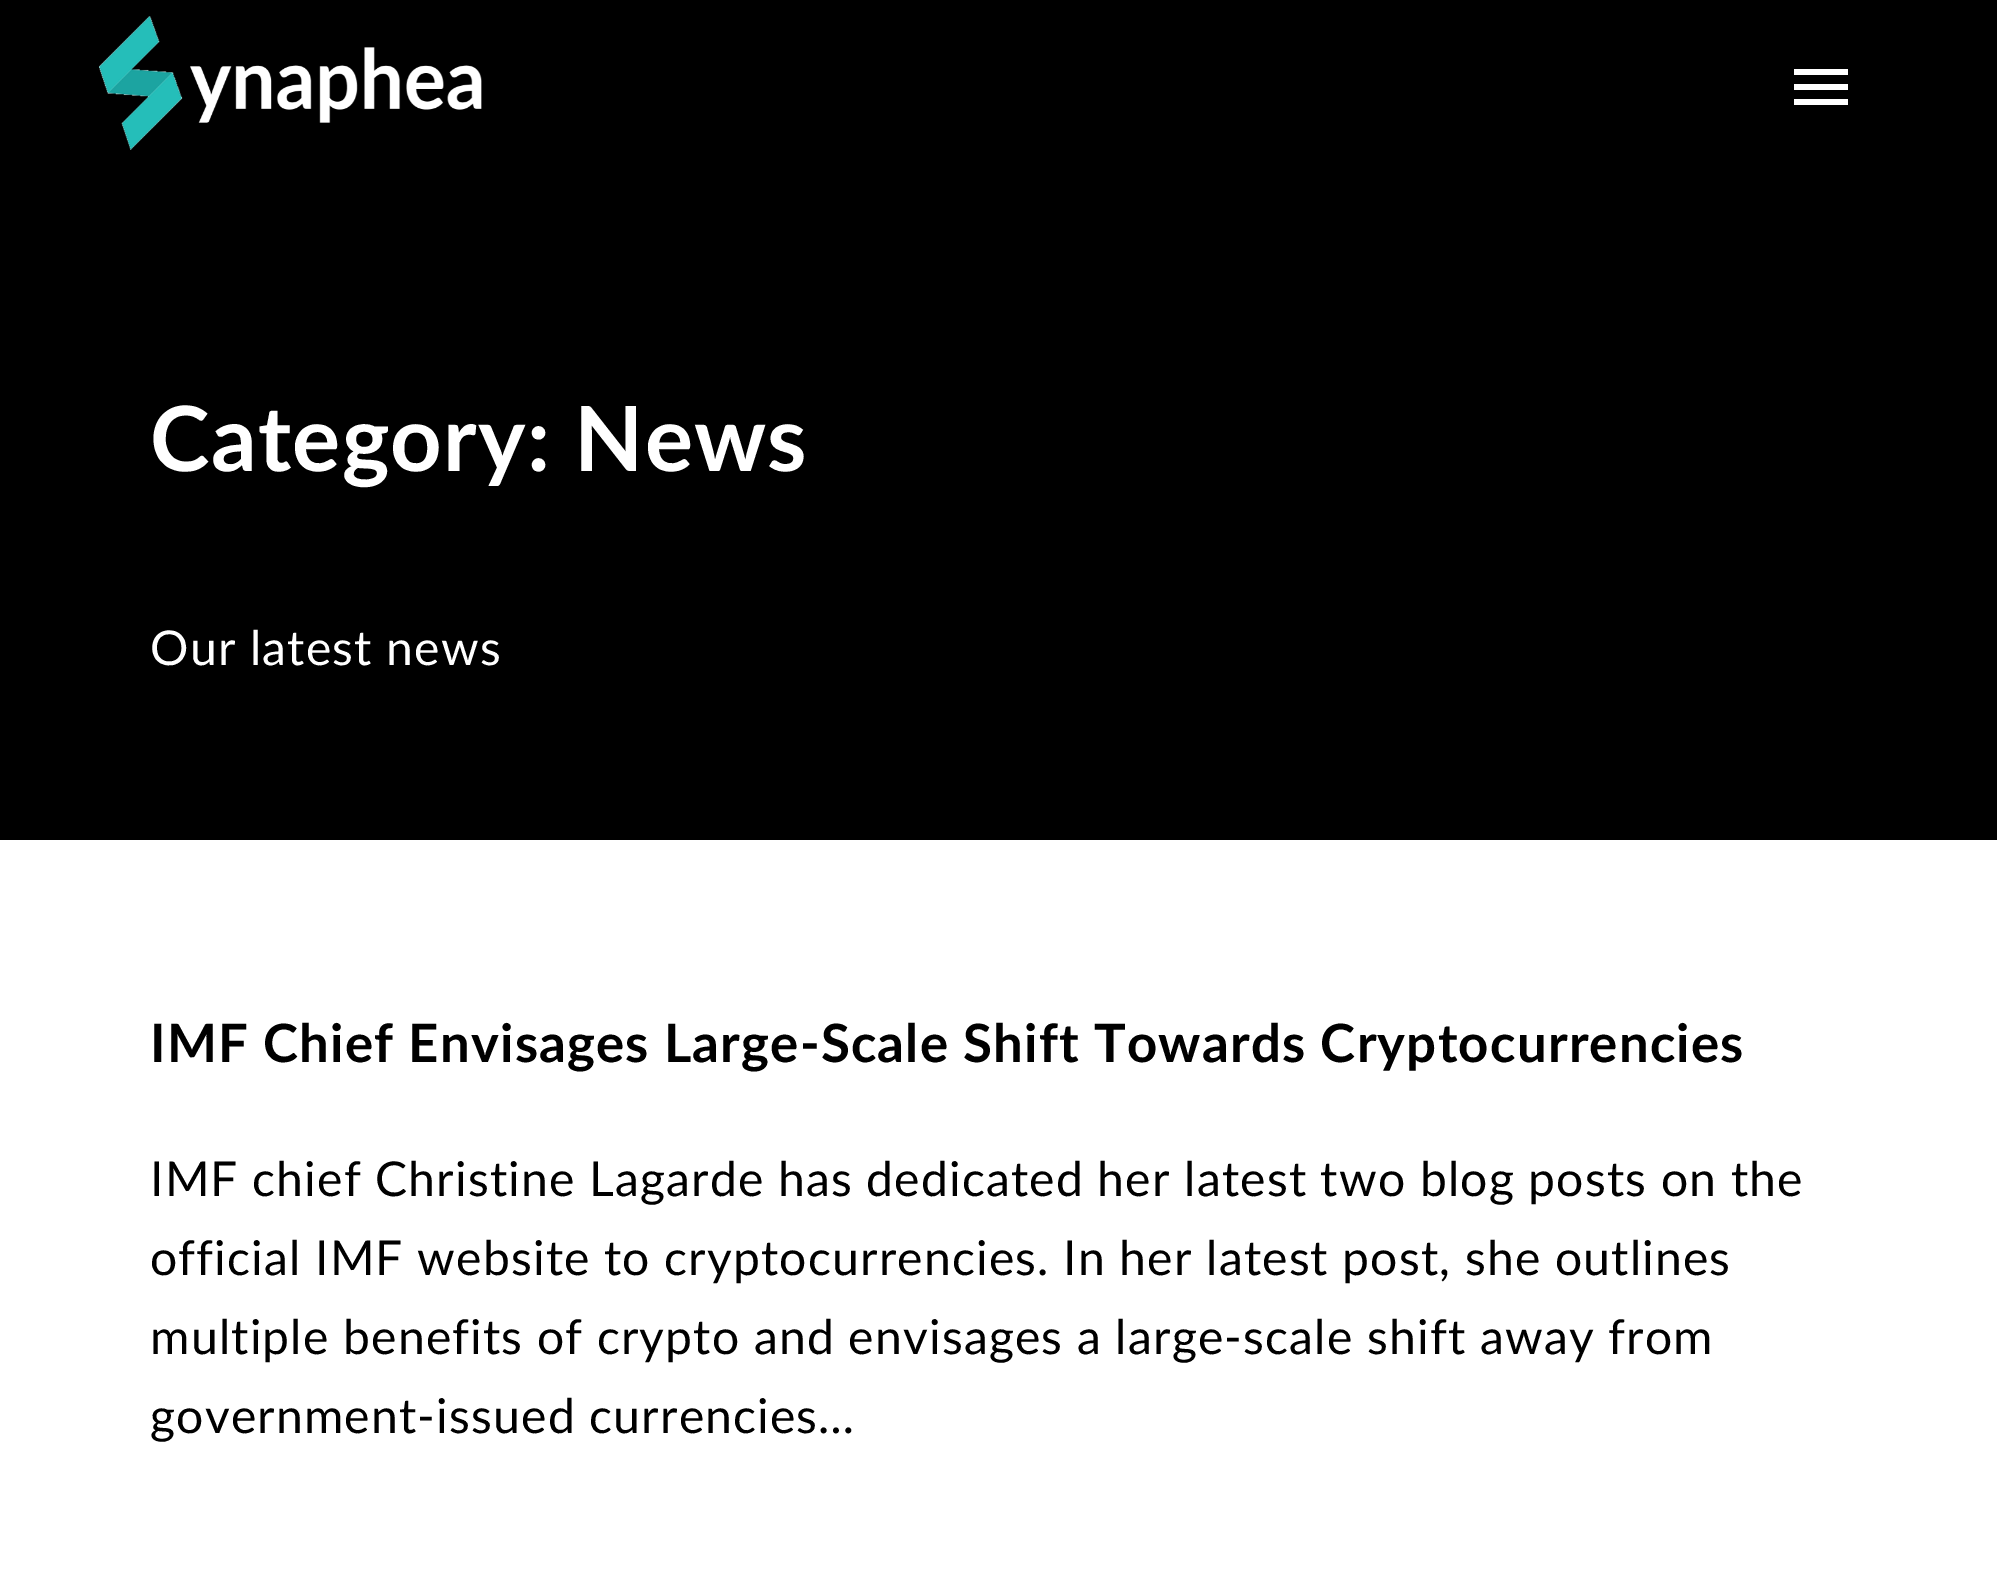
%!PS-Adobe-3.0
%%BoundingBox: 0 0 1997 1581
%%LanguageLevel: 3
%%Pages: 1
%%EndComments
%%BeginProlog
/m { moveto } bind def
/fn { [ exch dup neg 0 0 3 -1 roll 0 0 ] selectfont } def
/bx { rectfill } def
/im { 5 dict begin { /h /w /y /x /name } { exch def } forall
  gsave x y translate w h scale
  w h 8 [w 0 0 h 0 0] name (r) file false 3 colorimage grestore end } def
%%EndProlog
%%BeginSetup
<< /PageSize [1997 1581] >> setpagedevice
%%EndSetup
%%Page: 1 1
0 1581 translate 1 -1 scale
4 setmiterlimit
0 setgray
0 0 1997 1581 bx
(image0.raw) 99 16 383 134 im
1 setgray
1794 84 54 6 bx
1794 69 54 6 bx
1794 99 54 6 bx
/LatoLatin-Bold 90 fn
150 471 m 1.2 0 (Category: News) ashow
/LatoLatin-Regular 48 fn
150 665 m 1.2 0 (Our latest news) ashow
0 840 1997 741 bx
/LatoLatin-Bold 52.8 fn
0 setgray
150 1062 m 1.2 0 (IMF Chief Envisages Large-Scale Shift Towards Cryptocurrencies) ashow
/LatoLatin-Regular 48 fn
150 1196 m 1.2 0 (IMF chief Christine Lagarde has dedicated her latest two blog posts on the) ashow
150 1275 m 1.2 0 (official IMF website to cryptocurrencies. In her latest post, she outlines) ashow
150 1354 m 1.2 0 (multiple benefits of crypto and envisages a large-scale shift away from) ashow
150 1433 m 1.2 0 (government-issued currencies…) ashow
showpage
%%EOF
